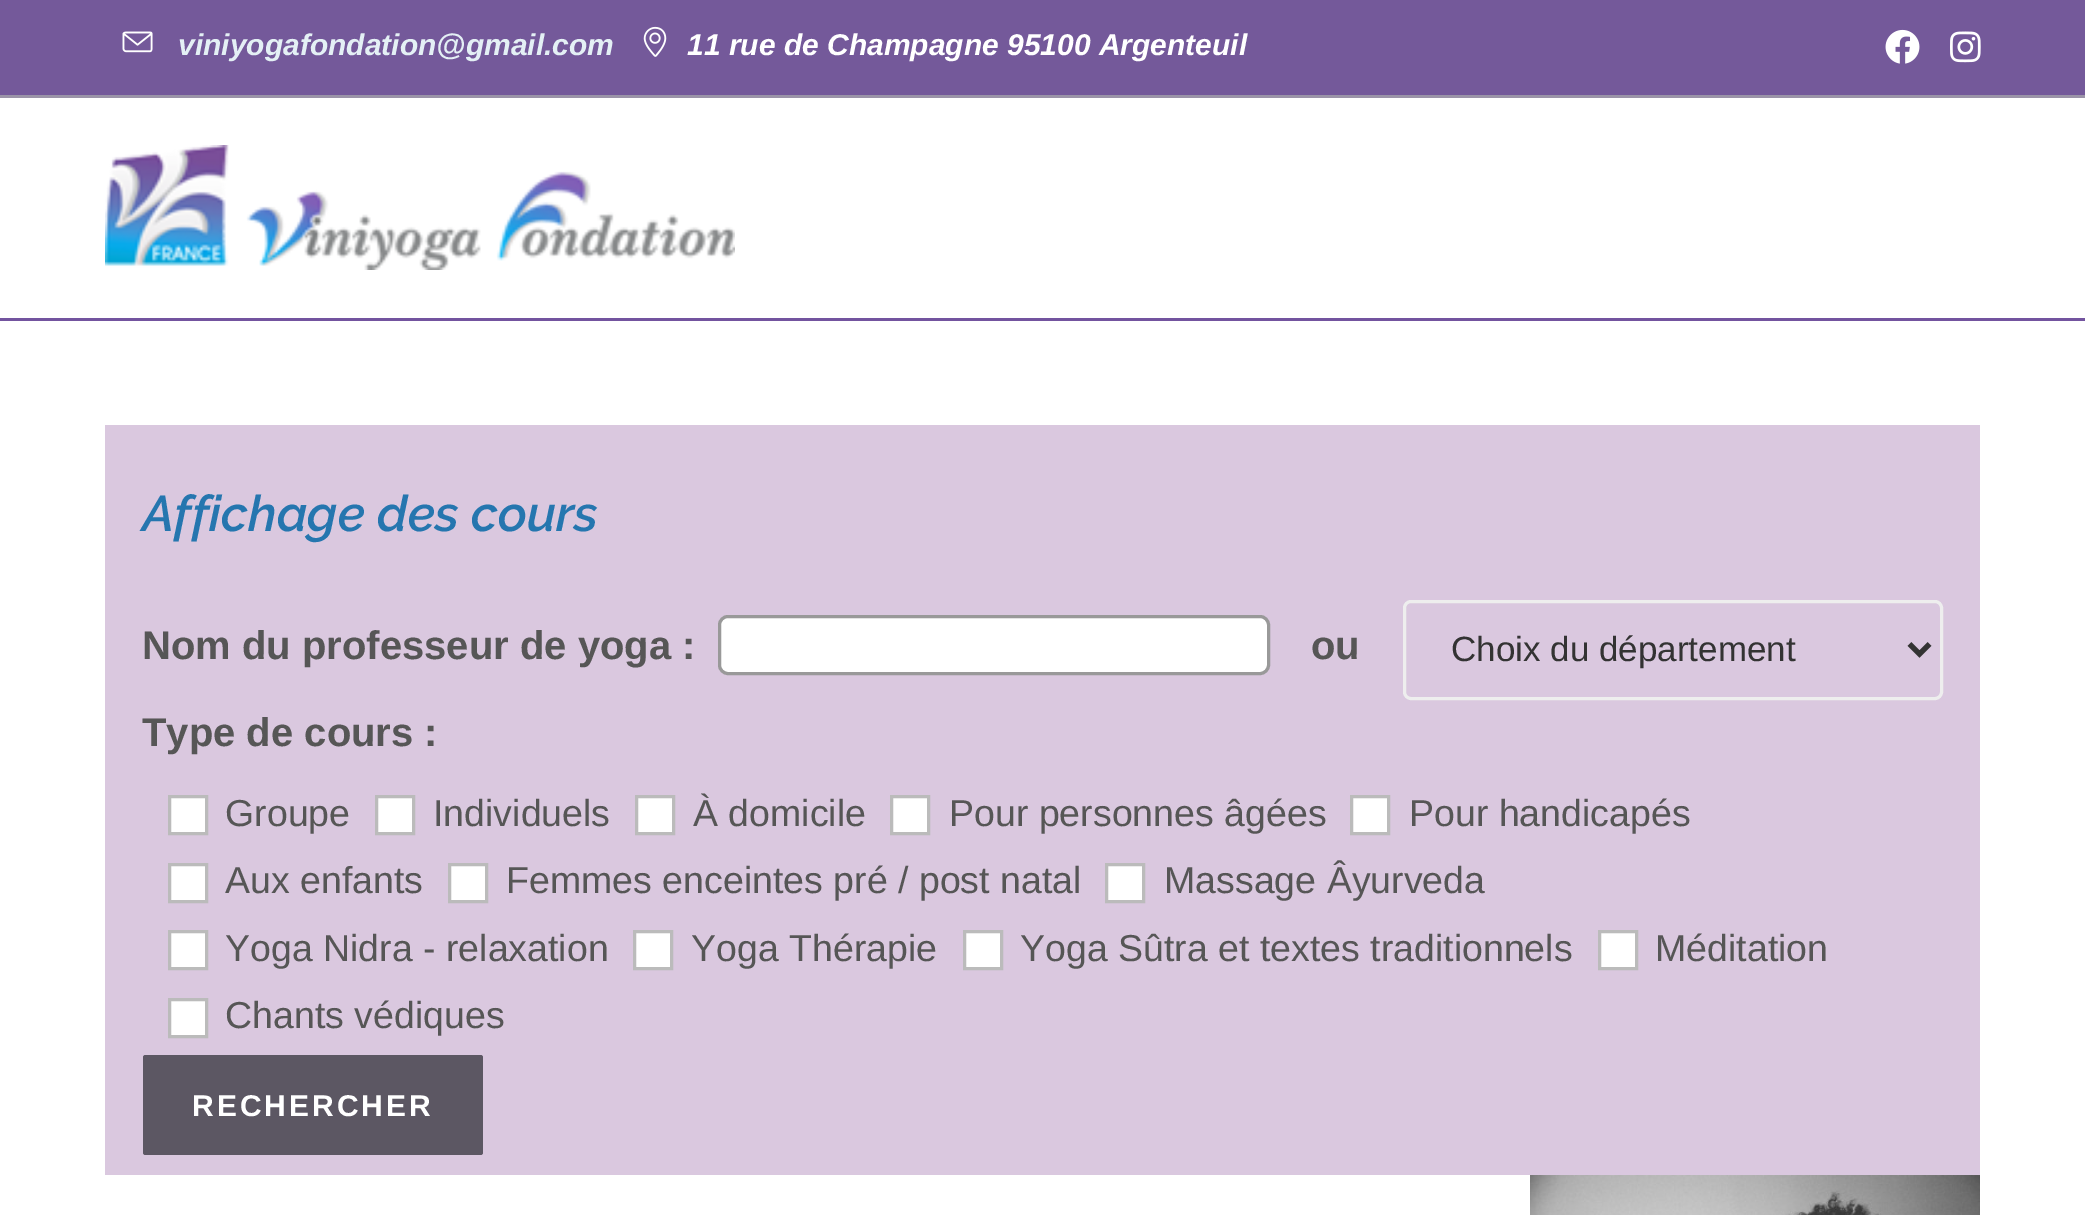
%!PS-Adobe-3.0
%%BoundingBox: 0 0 2085 1215
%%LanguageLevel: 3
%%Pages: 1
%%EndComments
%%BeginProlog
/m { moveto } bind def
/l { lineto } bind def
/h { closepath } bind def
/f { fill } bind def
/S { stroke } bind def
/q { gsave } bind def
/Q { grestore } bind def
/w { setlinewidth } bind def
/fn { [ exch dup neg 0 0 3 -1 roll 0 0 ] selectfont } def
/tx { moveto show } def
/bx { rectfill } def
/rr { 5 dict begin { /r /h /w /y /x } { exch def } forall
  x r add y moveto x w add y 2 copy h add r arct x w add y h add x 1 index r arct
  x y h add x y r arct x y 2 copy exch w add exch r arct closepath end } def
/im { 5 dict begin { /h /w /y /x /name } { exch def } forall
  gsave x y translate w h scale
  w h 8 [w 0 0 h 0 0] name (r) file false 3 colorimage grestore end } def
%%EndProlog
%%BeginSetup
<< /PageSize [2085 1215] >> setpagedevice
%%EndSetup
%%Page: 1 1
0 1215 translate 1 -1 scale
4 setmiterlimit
1 setgray
0 0 2085 1215 bx
0.455 0.349 0.604 setrgbcolor
0 0 2085 95 bx
0.608 0.58 0.659 setrgbcolor
0 95 2085 3 bx
(image0.raw) 122 31 31 22 im
/LiberationSans-BoldItalic 30 fn
0.894 0.941 0.961 setrgbcolor
(viniyogafondation@gmail.com) 178 55 tx
(image1.raw) 643 26 24 31 im
1 setgray
(11 rue de Champagne 95100 Argenteuil) 687 55 tx
(image2.raw) 1885 29 35 35 im
(image3.raw) 1950 31 31 32 im
0.451 0.329 0.624 setrgbcolor
0 318 2085 3 bx
(image4.raw) 105 145 630 125 im
0.855 0.784 0.875 setrgbcolor
105 425 1875 750 bx
/Raleway-ThinItalic 50 fn
0.145 0.463 0.686 setrgbcolor
(Affichage des cours) 142 531 tx
/LiberationSans-Bold 40 fn
0.337 setgray
(Nom du professeur de yoga :) 142 659 tx
1 setgray
719.5 616.5 549 57 8.5 rr q f Q
0.6 setgray
3 w
S
0.337 setgray
(ou) 1311 659 tx
0.933 setgray
1404.5 601.5 537 97 6.5 rr S
0.2 setgray
5 w
1909.5 644 m 1919.5 654 l 1929.5 644 l S
/LiberationSans-Regular 35 fn
(Choix du département) 1451 661 tx
/LiberationSans-Bold 40 fn
0.337 setgray
(Type de cours :) 142 746 tx
1 setgray
169.5 796.5 m 206.5 796.5 l 206.5 833.5 l 169.5 833.5 l h q f Q
0.733 setgray
3 w
S
/LiberationSans-Regular 37.5 fn
0.337 setgray
(Groupe) 225 826 tx
1 setgray
376.5 796.5 m 413.5 796.5 l 413.5 833.5 l 376.5 833.5 l h q f Q
0.733 setgray
S
0.337 setgray
(Individuels) 433 826 tx
1 setgray
636.5 796.5 m 673.5 796.5 l 673.5 833.5 l 636.5 833.5 l h q f Q
0.733 setgray
S
0.337 setgray
(À domicile) 693 826 tx
1 setgray
891.5 796.5 m 928.5 796.5 l 928.5 833.5 l 891.5 833.5 l h q f Q
0.733 setgray
S
0.337 setgray
(Pour personnes âgées) 949 826 tx
1 setgray
1351.5 796.5 m 1388.5 796.5 l 1388.5 833.5 l 1351.5 833.5 l h q f Q
0.733 setgray
S
0.337 setgray
(Pour handicapés) 1409 826 tx
1 setgray
169.5 864.5 m 206.5 864.5 l 206.5 901.5 l 169.5 901.5 l h q f Q
0.733 setgray
S
0.337 setgray
(Aux enfants) 225 893 tx
1 setgray
449.5 864.5 m 486.5 864.5 l 486.5 901.5 l 449.5 901.5 l h q f Q
0.733 setgray
S
0.337 setgray
(Femmes enceintes pré / post natal) 506 893 tx
1 setgray
1106.5 864.5 m 1143.5 864.5 l 1143.5 901.5 l 1106.5 901.5 l h q f Q
0.733 setgray
S
0.337 setgray
(Massage Âyurveda) 1164 893 tx
1 setgray
169.5 931.5 m 206.5 931.5 l 206.5 968.5 l 169.5 968.5 l h q f Q
0.733 setgray
S
0.337 setgray
(Yoga Nidra - relaxation) 225 961 tx
1 setgray
634.5 931.5 m 671.5 931.5 l 671.5 968.5 l 634.5 968.5 l h q f Q
0.733 setgray
S
0.337 setgray
(Yoga Thérapie) 691 961 tx
1 setgray
964.5 931.5 m 1001.5 931.5 l 1001.5 968.5 l 964.5 968.5 l h q f Q
0.733 setgray
S
0.337 setgray
(Yoga Sûtra et textes traditionnels) 1020 961 tx
1 setgray
1599.5 931.5 m 1636.5 931.5 l 1636.5 968.5 l 1599.5 968.5 l h q f Q
0.733 setgray
S
0.337 setgray
(Méditation) 1655 961 tx
1 setgray
169.5 999.5 m 206.5 999.5 l 206.5 1036.5 l 169.5 1036.5 l h q f Q
0.733 setgray
S
0.337 setgray
(Chants védiques) 225 1028 tx
0.361 0.341 0.388 setrgbcolor
143 1055 340 100 2.5 rr f
/LiberationSans-Bold 30 fn
1 setgray
192 1116 m 3 0 (RECHERCHER) ashow
(image5.raw) 1530 1175 450 40 im
showpage
%%EOF
